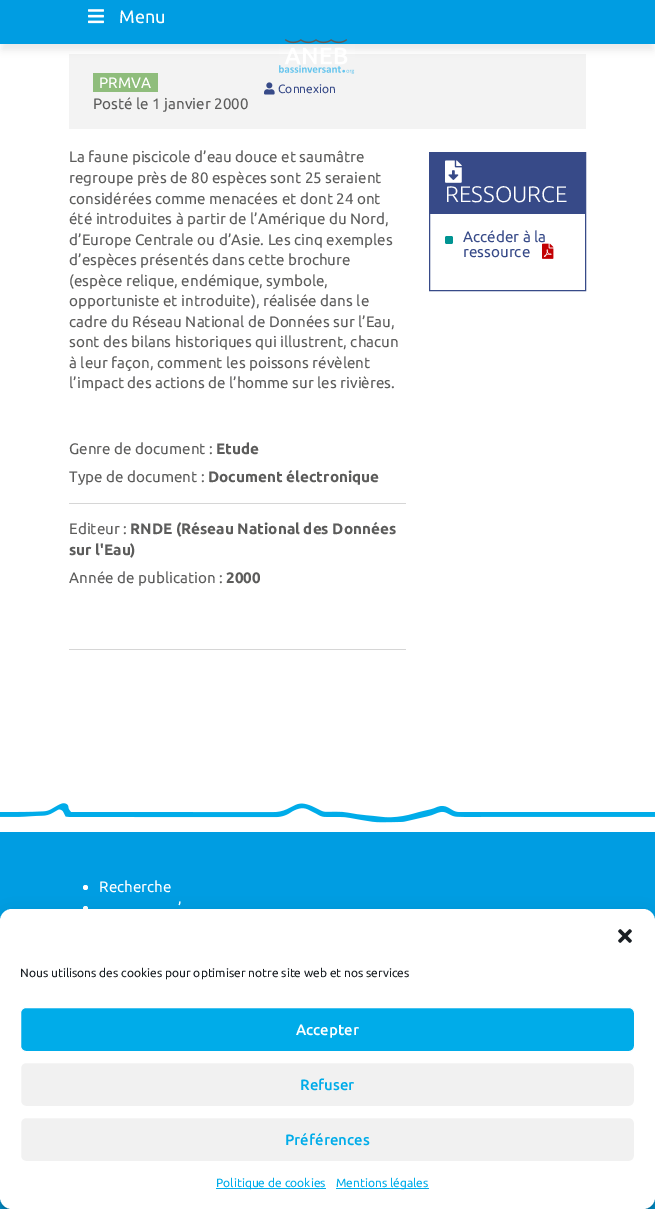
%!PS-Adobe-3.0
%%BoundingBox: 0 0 655 1209
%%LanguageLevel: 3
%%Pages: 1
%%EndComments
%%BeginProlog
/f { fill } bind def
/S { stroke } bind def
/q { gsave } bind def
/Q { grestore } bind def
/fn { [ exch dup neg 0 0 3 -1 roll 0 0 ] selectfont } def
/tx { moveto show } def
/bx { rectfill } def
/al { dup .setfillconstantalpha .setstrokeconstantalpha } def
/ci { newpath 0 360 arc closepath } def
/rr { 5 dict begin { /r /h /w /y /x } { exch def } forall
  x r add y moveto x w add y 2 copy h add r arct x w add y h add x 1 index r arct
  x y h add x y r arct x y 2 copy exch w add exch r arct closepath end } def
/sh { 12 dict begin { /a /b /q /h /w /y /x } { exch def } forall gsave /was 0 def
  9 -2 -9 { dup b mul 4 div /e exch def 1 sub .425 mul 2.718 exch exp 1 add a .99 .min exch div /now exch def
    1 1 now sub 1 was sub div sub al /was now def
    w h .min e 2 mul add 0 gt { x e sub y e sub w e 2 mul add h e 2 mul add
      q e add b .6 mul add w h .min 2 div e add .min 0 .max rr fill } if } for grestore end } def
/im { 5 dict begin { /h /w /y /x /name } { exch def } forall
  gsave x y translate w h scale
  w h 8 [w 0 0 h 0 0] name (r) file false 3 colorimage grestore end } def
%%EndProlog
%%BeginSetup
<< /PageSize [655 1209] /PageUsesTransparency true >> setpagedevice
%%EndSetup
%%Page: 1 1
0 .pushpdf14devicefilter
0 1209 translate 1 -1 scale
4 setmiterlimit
1 setgray
0 0 655 1209 bx
0.953 setgray
69 54 517 75 bx
0 setgray
2 10 651 40 0 3.5 0.08 sh
0 0.616 0.886 setrgbcolor
0 0 655 44 bx
(image0.raw) 88 9 16 15 im
/Ubuntu-Regular 18 fn
1 setgray
(Menu) 119 23 tx
(image1.raw) 279 39 76 35 im
(image2.raw) 264 82 11 13 im
/Ubuntu-Regular 12 fn
0.216 0.29 0.533 setrgbcolor
(Connexion) 278 93 tx
0.561 0.741 0.486 setrgbcolor
93 73 65 19 bx
/Ubuntu-Regular 15.2 fn
1 setgray
(PRMVA) 99 88 tx
0.361 0.361 0.357 setrgbcolor
(Posté le 1 janvier 2000) 93 109 tx
(La faune piscicole d’eau douce et saumâtre) 69 162 tx
(regroupe près de 80 espèces sont 25 seraient) 69 183 tx
(considérées comme menacées et dont 24 ont) 69 204 tx
(été introduites à partir de l’Amérique du Nord,) 69 224 tx
(d’Europe Centrale ou d’Asie. Les cinq exemples) 69 245 tx
(d’espèces présentés dans cette brochure) 69 265 tx
(\(espèce relique, endémique, symbole,) 69 286 tx
(opportuniste et introduite\), réalisée dans le) 69 306 tx
(cadre du Réseau National de Données sur l’Eau,) 69 327 tx
(sont des bilans historiques qui illustrent, chacun) 69 347 tx
(à leur façon, comment les poissons révèlent) 69 368 tx
(l’impact des actions de l’homme sur les rivières.) 69 388 tx
(Genre de document :) 69 454 tx
/Ubuntu-Bold 15.2 fn
(Etude) 216 454 tx
/Ubuntu-Regular 15.2 fn
(Type de document :) 69 482 tx
/Ubuntu-Bold 15.2 fn
(Document électronique) 208 482 tx
0.839 setgray
69 503 337 1 bx
/Ubuntu-Regular 15.2 fn
0.361 0.361 0.357 setrgbcolor
(Editeur :) 69 534 tx
/Ubuntu-Bold 15.2 fn
(RNDE \(Réseau National des Données) 130 534 tx
(sur l'Eau\)) 69 555 tx
/Ubuntu-Regular 15.2 fn
(Année de publication :) 69 583 tx
/Ubuntu-Bold 15.2 fn
(2000) 226 583 tx
0.839 setgray
69 649 337 1 bx
0.216 0.29 0.533 setrgbcolor
429.5 152.5 156 138 rectstroke
430 153 155 61 bx
(image3.raw) 445 160 17 23 im
/Ubuntu-Light 22.5 fn
1 setgray
(RESSOURCE) 445 202 tx
0 0.58 0.573 setrgbcolor
445 236 8 8 2 rr f
/Ubuntu-Regular 15.2 fn
0.216 0.29 0.533 setrgbcolor
(Accéder à la) 463 242 tx
(ressource) 463 257 tx
(image4.raw) 542 243 12 16 im
(image5.raw) 0 803 655 20 im
0 0.616 0.886 setrgbcolor
0 832 655 89 bx
1 setgray
85.5 887.5 2.5 ci f
(Recherche) 99 892 tx
(’) 178 913 tx
85.5 908.5 2.5 ci f
0 0.616 0.886 setrgbcolor
0 1197 655 12 bx
0 setgray
0 915 655 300 12 3 0.23 sh
0 919 655 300 12 10 0.19 sh
1 setgray
0 909 655 300 12 rr f
(image6.raw) 618 929 14 14 im
/Ubuntu-Regular 12 fn
0.098 0.118 0.137 setrgbcolor
(Nous utilisons des cookies pour optimiser notre site web et nos services) 20 977 tx
0 0.675 0.914 setrgbcolor
20.5 1007.5 614 44 5.5 rr q f Q
1 setgray
S
/Ubuntu-Medium 15 fn
(Accepter) 296 1035 tx
0.945 setgray
20.5 1062.5 614 44 5.5 rr q f Q
1 setgray
S
0 0.675 0.914 setrgbcolor
(Refuser) 300 1090 tx
0.945 setgray
20.5 1117.5 614 44 5.5 rr q f Q
1 setgray
S
0 0.675 0.914 setrgbcolor
(Préférences) 285 1145 tx
216 1188 110 1 bx
/Ubuntu-Regular 12 fn
(Politique de cookies) 216 1187 tx
336 1188 93 1 bx
(Mentions légales) 336 1187 tx
.poppdf14devicefilter showpage
%%EOF
